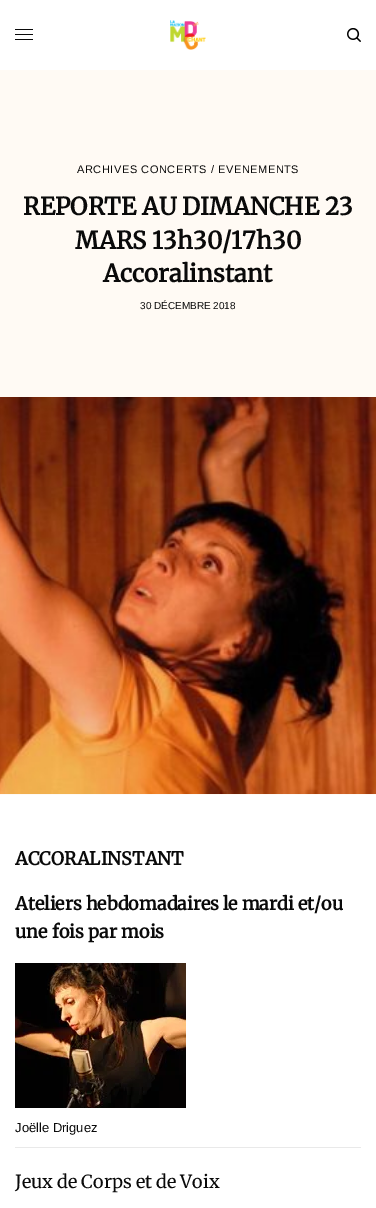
%!PS-Adobe-3.0
%%BoundingBox: 0 0 376 1208
%%LanguageLevel: 3
%%Pages: 1
%%EndComments
%%BeginProlog
/m { moveto } bind def
/f { fill } bind def
/fn { [ exch dup neg 0 0 3 -1 roll 0 0 ] selectfont } def
/tx { moveto show } def
/bx { rectfill } def
/rr { 5 dict begin { /r /h /w /y /x } { exch def } forall
  x r add y moveto x w add y 2 copy h add r arct x w add y h add x 1 index r arct
  x y h add x y r arct x y 2 copy exch w add exch r arct closepath end } def
/im { 5 dict begin { /h /w /y /x /name } { exch def } forall
  gsave x y translate w h scale
  w h 8 [w 0 0 h 0 0] name (r) file false 3 colorimage grestore end } def
%%EndProlog
%%BeginSetup
<< /PageSize [376 1208] >> setpagedevice
%%EndSetup
%%Page: 1 1
0 1208 translate 1 -1 scale
4 setmiterlimit
1 setgray
0 0 376 1208 bx
0.039 setgray
15 29 18 1 0.5 rr f
15 34 18 1 0.5 rr f
15 39 18 1 0.5 rr f
(image0.raw) 170 20 36 30 im
(image1.raw) 347 28 14 14 im
1 0.98 0.957 setrgbcolor
0 70 376 725 bx
/LiberationSans-Regular 11 fn
0.039 setgray
77 173 m 0.55 0 (ARCHIVES CONCERTS / EVENEMENTS) ashow
/Merriweather-Bold 24 fn
(REPORTE AU DIMANCHE 23) 23 215 tx
(MARS 13h30/17h30) 75 249 tx
(Accoralinstant) 103 282 tx
/LiberationSans-Regular 10 fn
(30 DÉCEMBRE 2018) 140 309 tx
(image2.raw) 0 397 376 397 im
/Merriweather-Bold 18 fn
(ACCORALINSTANT) 15 865 tx
15 910 m -0.5 0 32 (Ateliers hebdomadaires le mardi et/ou) widthshow
(une fois par mois) 15 938 tx
(image3.raw) 15 963 171 145 im
0.914 setgray
15 1147 346 1 bx
/LiberationSans-Regular 13 fn
0.039 setgray
(Joëlle Driguez) 15 1132 tx
/Merriweather-Light 18 fn
15 1188 m -0.25 0 32 (Jeux de Corps et de Voix) widthshow
showpage
%%EOF
